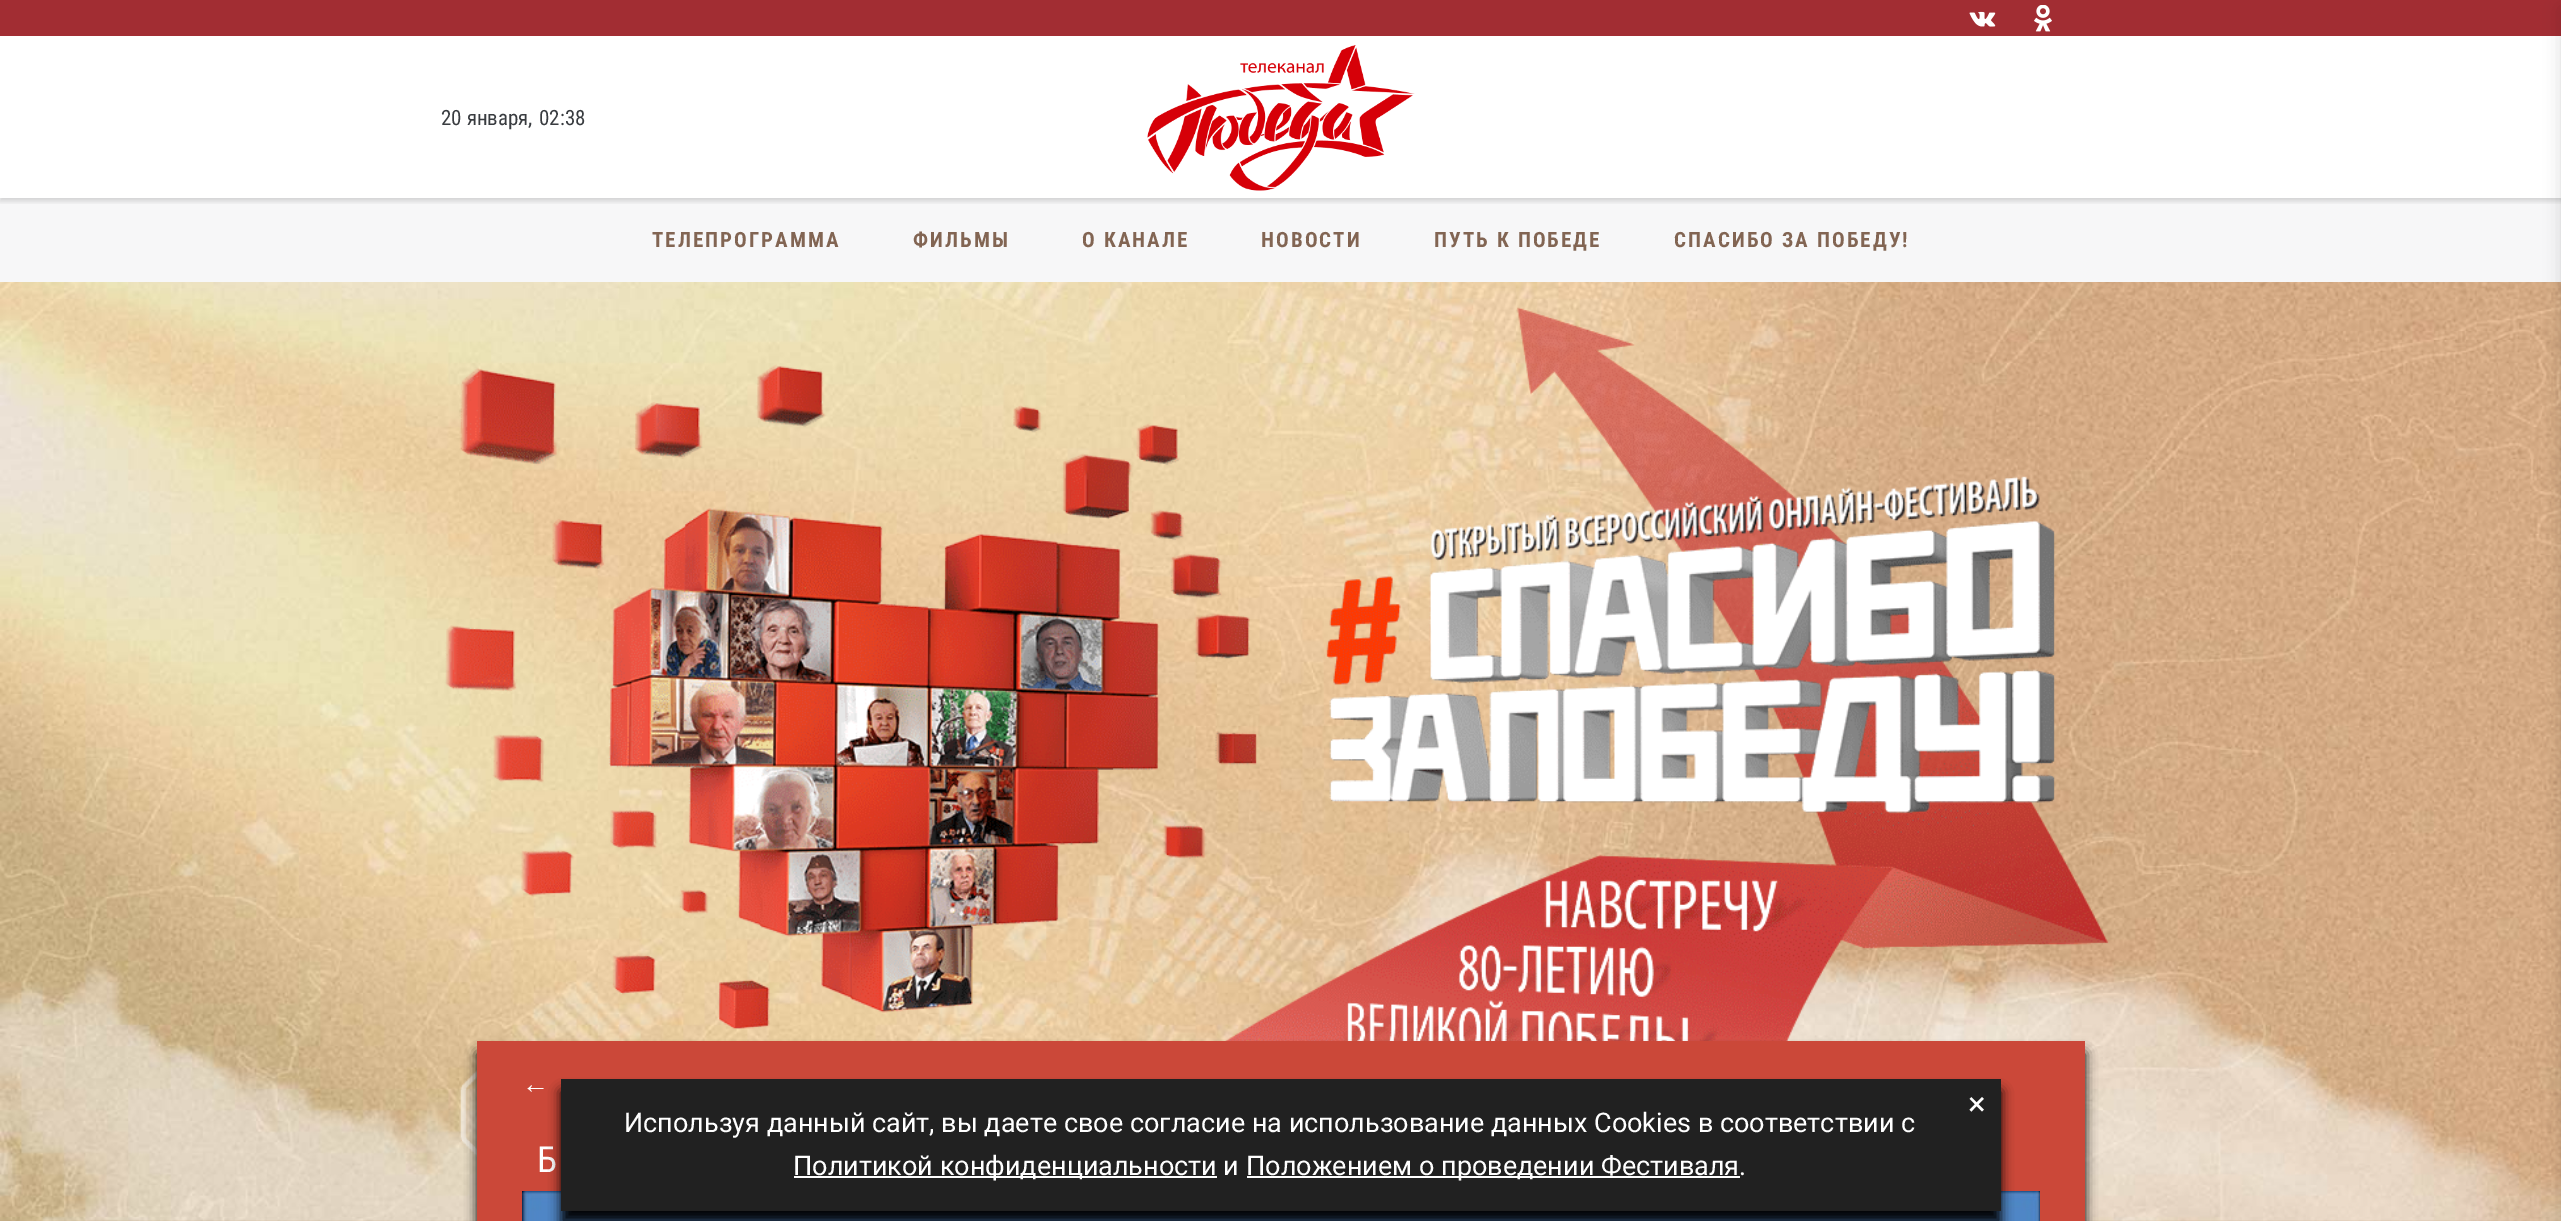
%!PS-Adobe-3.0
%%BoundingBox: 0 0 2561 1221
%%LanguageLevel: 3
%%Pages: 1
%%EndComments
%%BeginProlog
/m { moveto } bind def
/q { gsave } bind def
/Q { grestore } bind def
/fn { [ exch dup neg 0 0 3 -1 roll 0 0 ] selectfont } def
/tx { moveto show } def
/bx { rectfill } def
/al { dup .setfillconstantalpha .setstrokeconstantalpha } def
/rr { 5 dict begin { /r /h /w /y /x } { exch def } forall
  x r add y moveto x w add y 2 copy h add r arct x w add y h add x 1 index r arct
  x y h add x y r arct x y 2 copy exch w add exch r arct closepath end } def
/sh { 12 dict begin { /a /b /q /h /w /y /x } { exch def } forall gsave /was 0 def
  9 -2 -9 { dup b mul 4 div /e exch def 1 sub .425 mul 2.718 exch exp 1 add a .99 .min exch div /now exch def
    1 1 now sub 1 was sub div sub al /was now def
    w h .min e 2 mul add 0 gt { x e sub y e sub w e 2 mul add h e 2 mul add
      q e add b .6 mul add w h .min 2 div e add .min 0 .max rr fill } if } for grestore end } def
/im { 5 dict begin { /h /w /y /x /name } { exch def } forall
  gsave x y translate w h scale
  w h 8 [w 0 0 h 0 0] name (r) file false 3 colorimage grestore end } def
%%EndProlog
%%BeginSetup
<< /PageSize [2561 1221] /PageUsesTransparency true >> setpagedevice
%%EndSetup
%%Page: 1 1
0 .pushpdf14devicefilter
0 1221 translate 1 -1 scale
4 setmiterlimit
1 setgray
0 0 2561 1221 bx
(image0.raw) 0 1220 2561 1 im
0.635 0.176 0.2 setrgbcolor
0 0 2561 36 bx
(image1.raw) 1969 11 27 16 im
(image2.raw) 2034 5 18 27 im
0.969 0.969 0.973 setrgbcolor
0 198 2561 84 bx
q
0 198 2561 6 rectclip
0 setgray
0 39 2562 162 0 3 0.16 sh
Q
/RobotoCondensed-Regular 21 fn
0.224 0.235 0.251 setrgbcolor
(20 января,) 441 125 tx
(02:38) 539 125 tx
(image3.raw) 1147 45 268 146 im
/RobotoCondensed-Bold 21 fn
0.51 0.396 0.325 setrgbcolor
652 247 m 2.1 0 (ТЕЛЕПРОГРАММА) ashow
913 247 m 2.1 0 (ФИЛЬМЫ) ashow
1082 247 m 2.1 0 (О КАНАЛЕ) ashow
1261 247 m 2.1 0 (НОВОСТИ) ashow
1434 247 m 2.1 0 (ПУТЬ К ПОБЕДЕ) ashow
1674 247 m 2.1 0 (СПАСИБО ЗА ПОБЕДУ!) ashow
(image4.raw) 0 282 2561 939 im
0 setgray
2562 9 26 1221 0 9 0.16 sh
(image5.raw) 445 307 1664 850 im
477 1053 1608 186 0 6 1 sh
0.796 0.282 0.224 setrgbcolor
477 1041 1608 180 bx
/LiberationSans-Regular 27 fn
1 setgray
(←) 522 1093 tx
/RobotoCondensed-Regular 36 fn
(Б) 537 1172 tx
(image6.raw) 522 1191 1518 30 im
0 setgray
561 1091 1440 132 0 6 1 sh
0.129 setgray
561 1079 1440 132 bx
/Roboto-Regular 33 fn
1 setgray
(×) 1968 1115 tx
/Roboto-Regular 27 fn
(Используя данный сайт, вы даете свое согласие на использование данных Cookies в соответствии с) 624 1132 tx
794 1176 423 2 bx
(Политикой конфиденциальности и) 793 1175 tx
1247 1176 493 2 bx
(Положением о проведении Фестиваля.) 1246 1175 tx
.poppdf14devicefilter showpage
%%EOF
